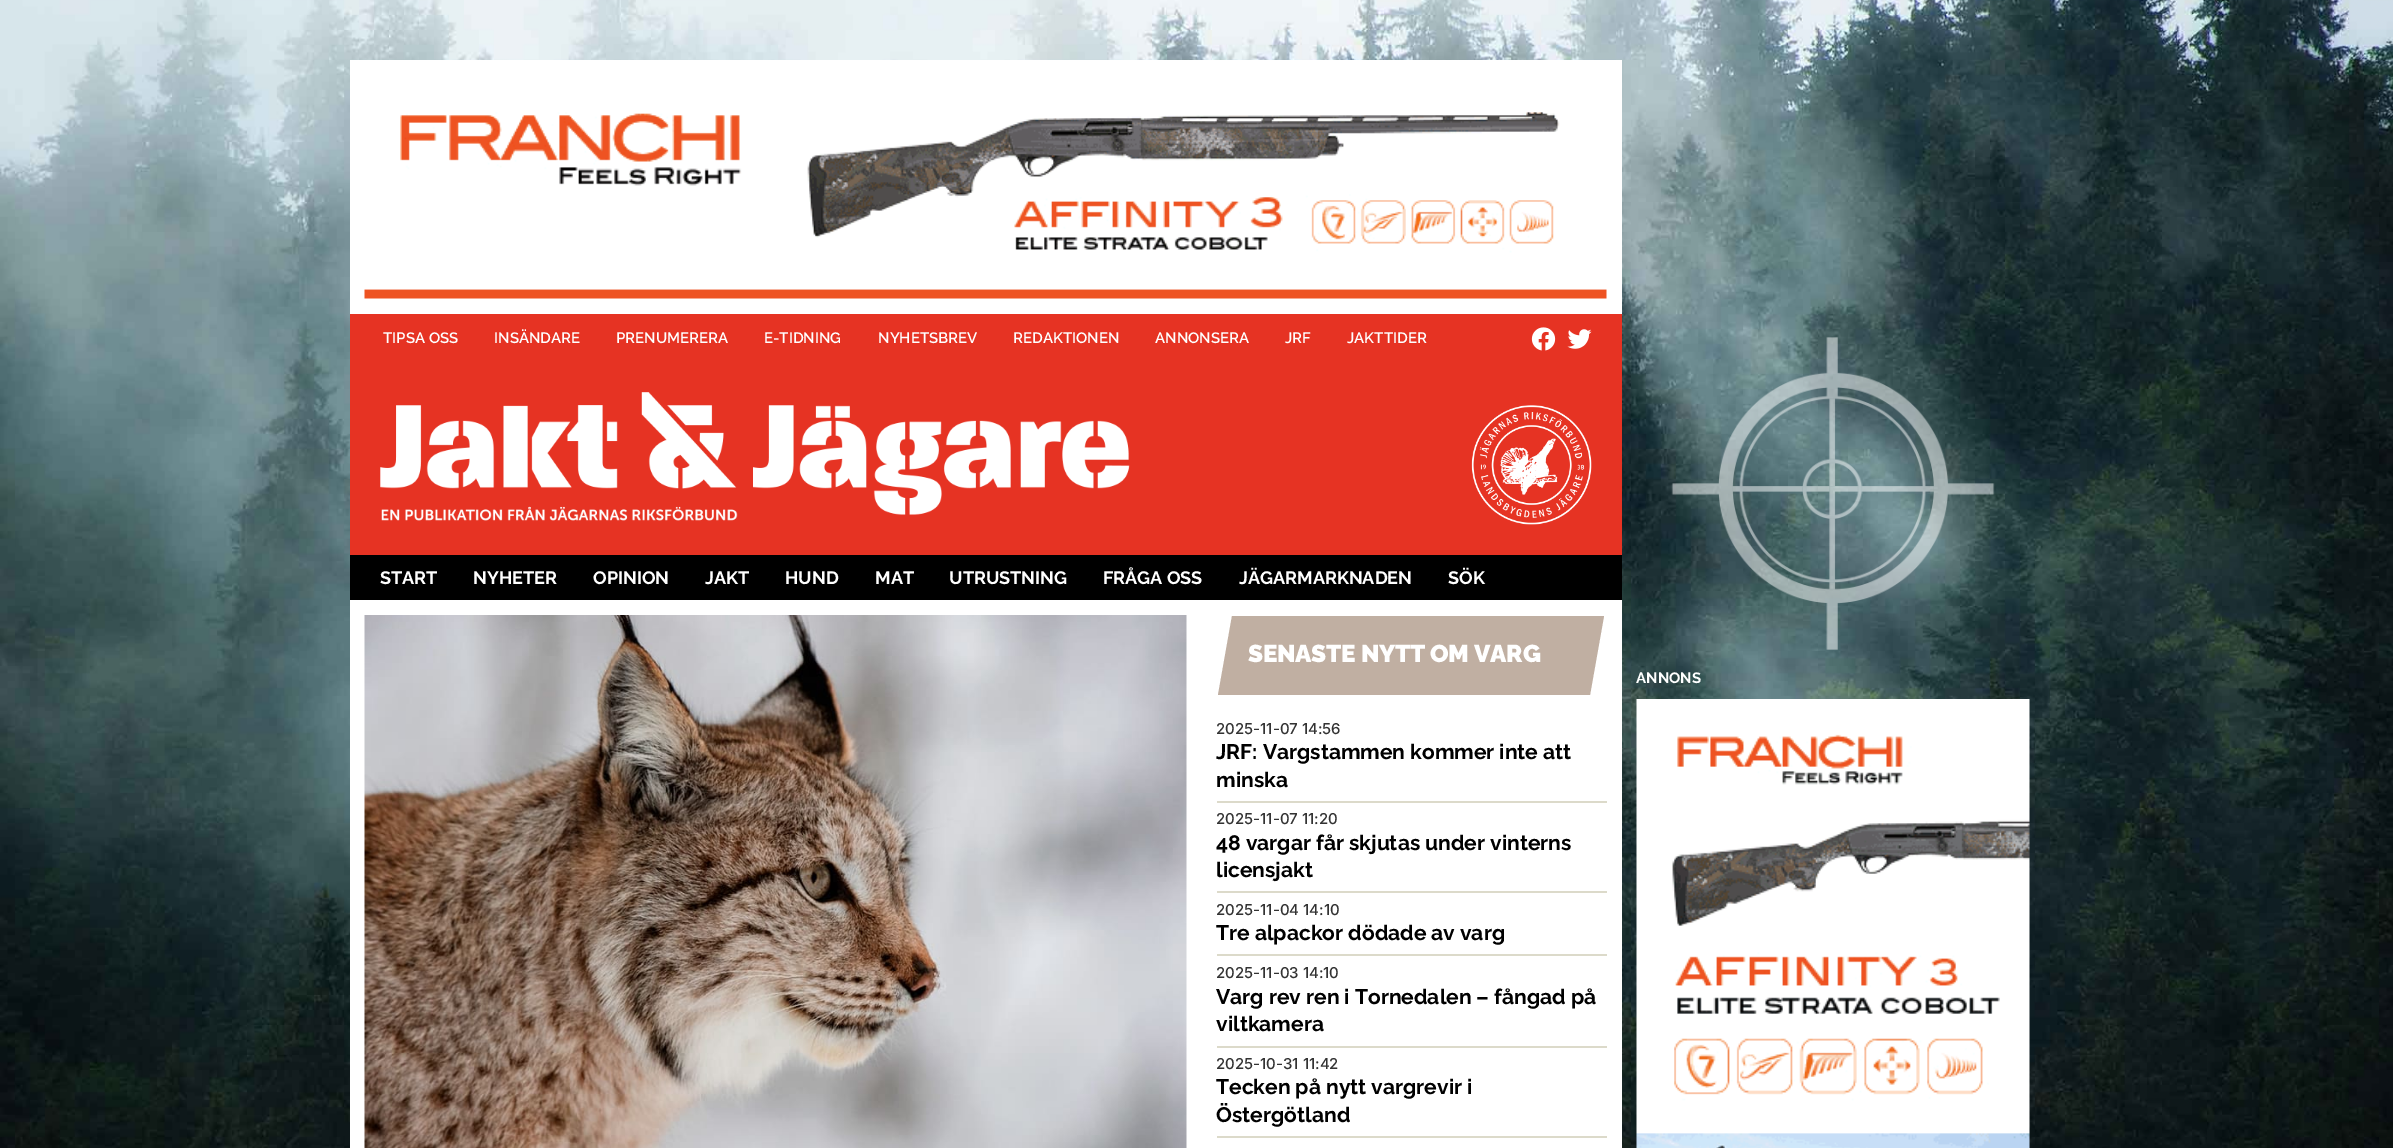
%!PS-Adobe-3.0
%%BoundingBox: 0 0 2393 1148
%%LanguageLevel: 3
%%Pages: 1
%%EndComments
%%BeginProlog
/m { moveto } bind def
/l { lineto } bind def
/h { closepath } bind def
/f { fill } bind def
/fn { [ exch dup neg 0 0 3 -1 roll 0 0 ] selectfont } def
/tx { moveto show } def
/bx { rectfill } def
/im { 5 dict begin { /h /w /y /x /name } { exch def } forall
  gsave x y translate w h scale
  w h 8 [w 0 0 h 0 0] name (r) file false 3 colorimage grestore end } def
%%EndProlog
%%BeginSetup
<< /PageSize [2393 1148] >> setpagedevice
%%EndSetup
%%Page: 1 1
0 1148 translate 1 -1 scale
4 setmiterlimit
1 setgray
0 0 2393 1148 bx
(image0.raw) 0 0 2393 1148 im
350 60 1272 254 bx
(image1.raw) 364 111 1243 188 im
0.902 0.2 0.137 setrgbcolor
350 314 1272 241 bx
/Raleway-SemiBold 15 fn
1 setgray
(TIPSA OSS) 383 343 tx
(INSÄNDARE) 494 343 tx
(PRENUMERERA) 616 343 tx
(E-TIDNING) 764 343 tx
(NYHETSBREV) 878 343 tx
(REDAKTIONEN) 1013 343 tx
(ANNONSERA) 1155 343 tx
(JRF) 1285 343 tx
(JAKTTIDER) 1347 343 tx
(image2.raw) 1531 327 25 24 im
(image3.raw) 1567 329 25 20 im
(image4.raw) 380 392 750 129 im
(image5.raw) 1471 405 121 120 im
0 setgray
350 555 1272 45 bx
/Raleway-Bold 18 fn
1 setgray
(START) 380 584 tx
(NYHETER) 473 584 tx
(OPINION) 593 584 tx
(JAKT) 705 584 tx
(HUND) 785 584 tx
(MAT) 875 584 tx
(UTRUSTNING) 949 584 tx
(FRÅGA OSS) 1103 584 tx
(JÄGARMARKNADEN) 1239 584 tx
(SÖK) 1448 584 tx
350 600 1272 548 bx
(image6.raw) 364 615 823 533 im
0.753 0.686 0.635 setrgbcolor
1232 616 m 1604 616 l 1590 695 l 1218 695 l h f
/Raleway-Black 24.4 fn
1 setgray
1248 662 m -0.25 0 (SENASTE NYTT OM VARG) ashow
0.863 0.855 0.792 setrgbcolor
1217 801 390 2 bx
/Inter-Medium 15 fn
0.2 setgray
(2025-11-07 14:56) 1216 734 tx
/Raleway-Bold 21 fn
0 setgray
(JRF: Vargstammen kommer inte att) 1216 759 tx
(minska) 1216 787 tx
0.863 0.855 0.792 setrgbcolor
1217 891 390 2 bx
/Inter-Medium 15 fn
0.2 setgray
(2025-11-07 11:20) 1216 824 tx
/Raleway-Bold 21 fn
0 setgray
(48 vargar får skjutas under vinterns) 1216 850 tx
(licensjakt) 1216 877 tx
0.863 0.855 0.792 setrgbcolor
1217 954 390 2 bx
/Inter-Medium 15 fn
0.2 setgray
(2025-11-04 14:10) 1216 915 tx
/Raleway-Bold 21 fn
0 setgray
(Tre alpackor dödade av varg) 1216 940 tx
0.863 0.855 0.792 setrgbcolor
1217 1046 390 2 bx
/Inter-Medium 15 fn
0.2 setgray
(2025-11-03 14:10) 1216 978 tx
/Raleway-Bold 21 fn
0 setgray
(Varg rev ren i Tornedalen – fångad på) 1216 1004 tx
(viltkamera) 1216 1031 tx
0.863 0.855 0.792 setrgbcolor
1217 1136 390 2 bx
/Inter-Medium 15 fn
0.2 setgray
(2025-10-31 11:42) 1216 1069 tx
/Raleway-Bold 21 fn
0 setgray
(Tecken på nytt vargrevir i) 1216 1094 tx
(Östergötland) 1216 1122 tx
(image7.raw) 1671 337 324 313 im
/Raleway-Bold 15 fn
1 setgray
(ANNONS) 1636 683 tx
(image8.raw) 1636 699 394 449 im
showpage
%%EOF
